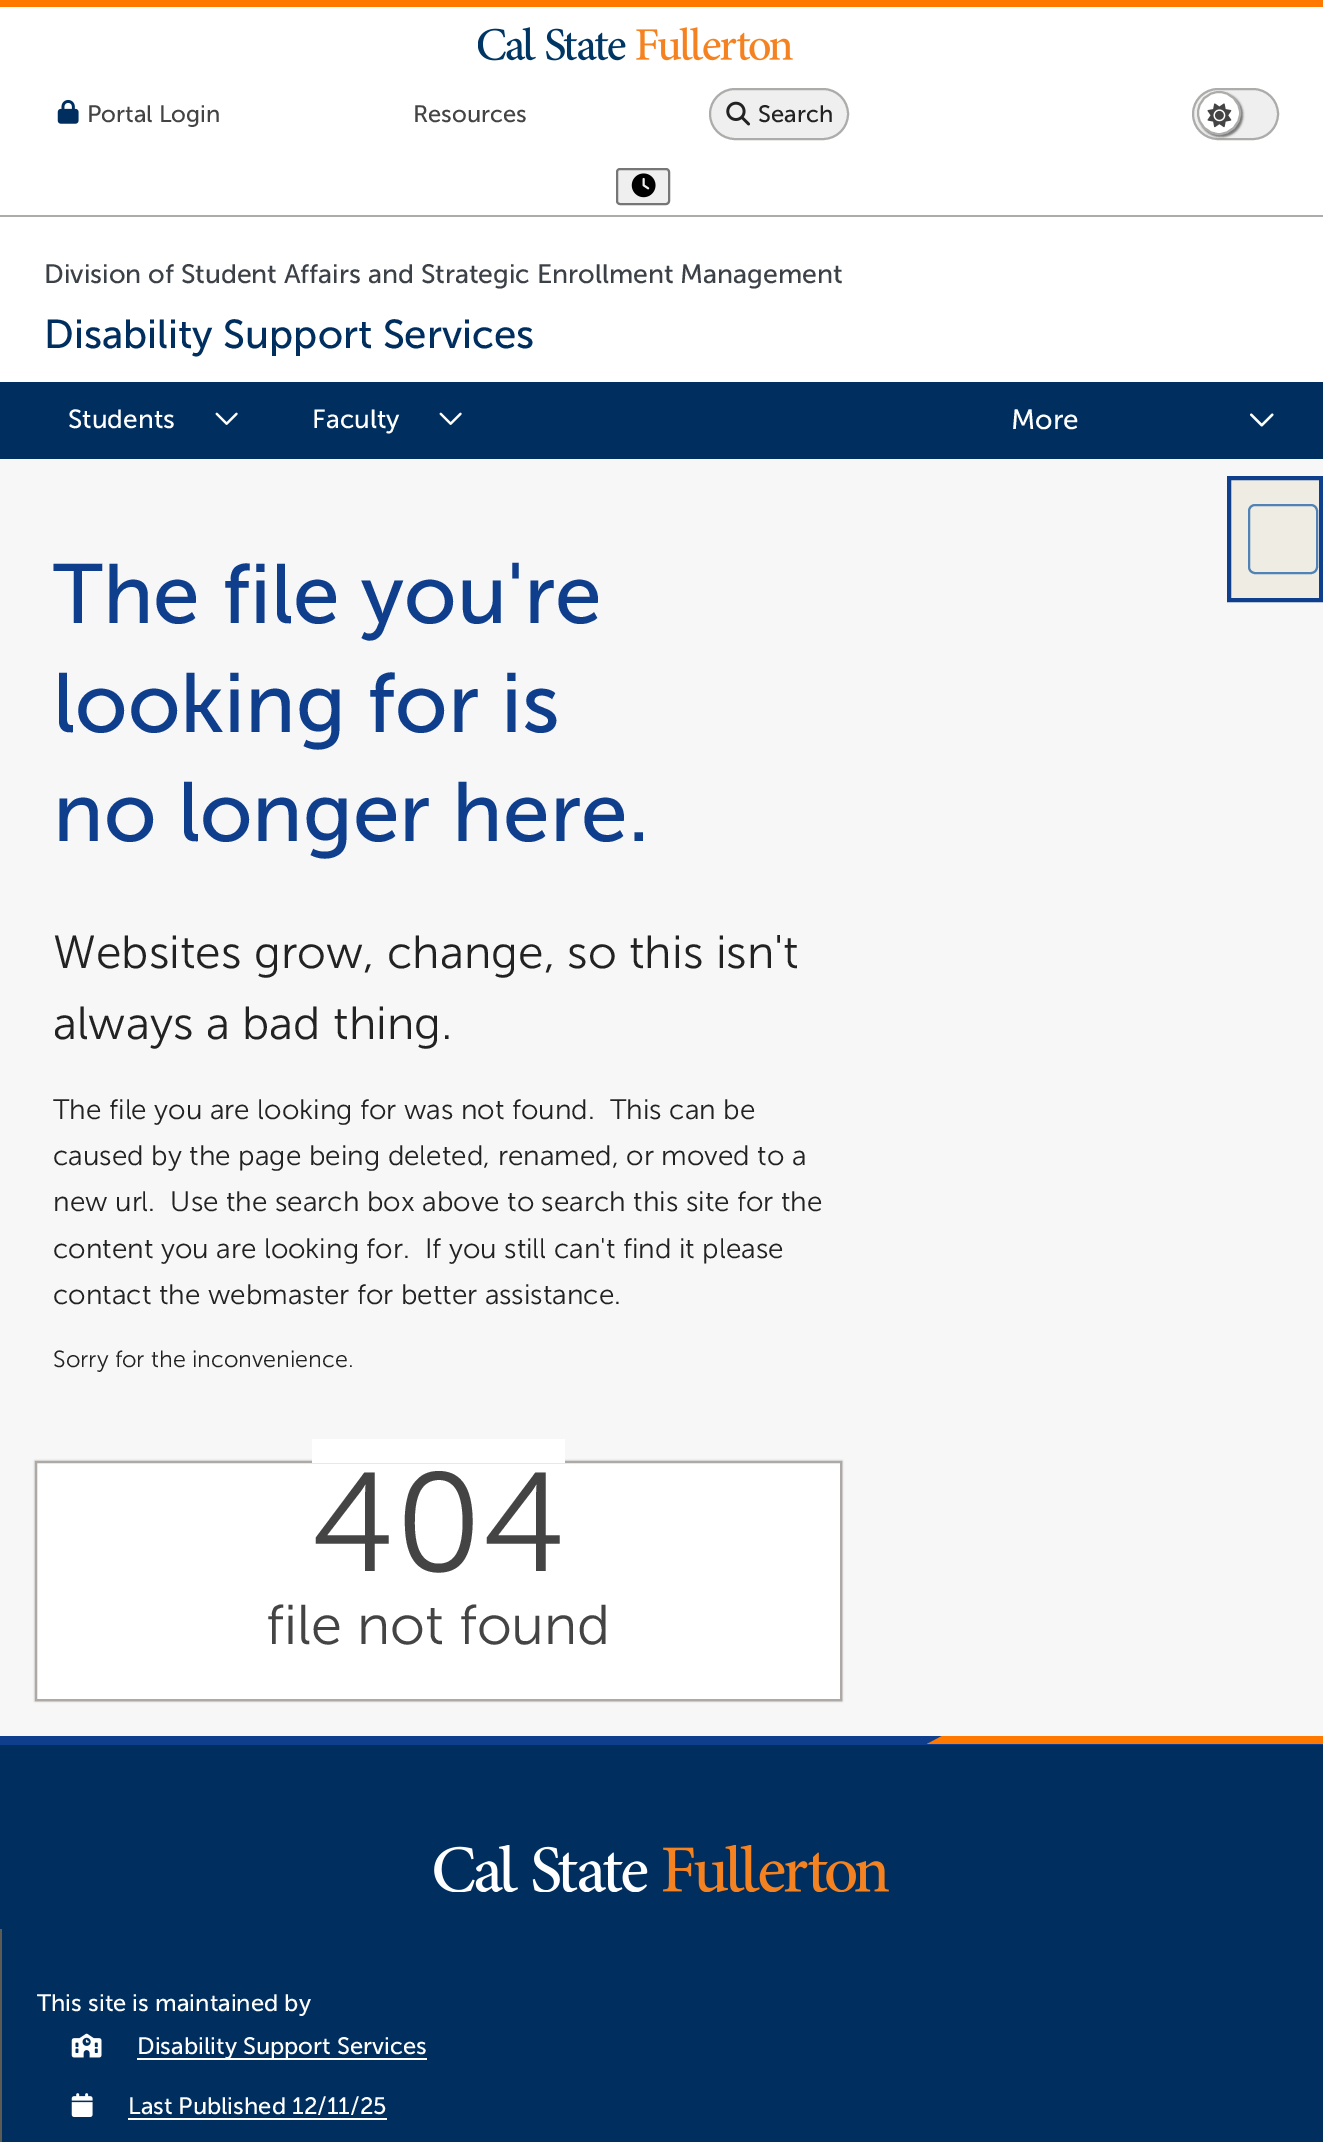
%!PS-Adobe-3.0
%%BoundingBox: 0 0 1323 2142
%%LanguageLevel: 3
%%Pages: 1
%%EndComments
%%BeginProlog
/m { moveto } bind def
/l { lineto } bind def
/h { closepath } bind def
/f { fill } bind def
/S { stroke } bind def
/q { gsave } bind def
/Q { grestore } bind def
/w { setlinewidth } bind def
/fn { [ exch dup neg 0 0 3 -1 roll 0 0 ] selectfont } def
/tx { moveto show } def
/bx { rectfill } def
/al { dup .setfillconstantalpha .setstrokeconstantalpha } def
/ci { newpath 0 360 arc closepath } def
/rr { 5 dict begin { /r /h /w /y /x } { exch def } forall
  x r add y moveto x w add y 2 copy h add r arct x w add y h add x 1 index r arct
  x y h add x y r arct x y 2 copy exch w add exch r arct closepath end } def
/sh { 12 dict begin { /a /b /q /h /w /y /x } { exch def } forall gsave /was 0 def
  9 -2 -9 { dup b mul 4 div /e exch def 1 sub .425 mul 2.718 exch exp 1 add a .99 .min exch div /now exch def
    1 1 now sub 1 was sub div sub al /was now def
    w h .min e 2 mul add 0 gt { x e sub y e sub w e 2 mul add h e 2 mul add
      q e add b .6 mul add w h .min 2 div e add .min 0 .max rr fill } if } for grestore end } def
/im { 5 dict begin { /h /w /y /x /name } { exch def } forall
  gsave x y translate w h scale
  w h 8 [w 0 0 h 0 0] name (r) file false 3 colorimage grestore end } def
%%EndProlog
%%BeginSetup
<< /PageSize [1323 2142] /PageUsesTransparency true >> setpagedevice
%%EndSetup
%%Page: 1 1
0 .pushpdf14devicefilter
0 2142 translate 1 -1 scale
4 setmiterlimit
0.969 setgray
0 0 1323 2142 bx
1 setgray
0 7 1323 375 bx
1 0.475 0 setrgbcolor
0 0 1323 7 bx
0.675 0.675 0.667 setrgbcolor
0 215 1323 2 bx
(image0.raw) 478 27 315 34 im
(image1.raw) 57 99 22 25 im
/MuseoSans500-Regular 23.75 fn
0.267 setgray
(Portal Login) 87 122 tx
(Resources) 413 122 tx
0.937 setgray
710 89 138 50 25 rr q f Q
0.675 0.675 0.667 setrgbcolor
2 w
S
(image2.raw) 726 101 24 25 im
0.133 setgray
(Search) 758 122 tx
0.937 setgray
1193 89 85 50 25 rr q f Q
0.675 0.675 0.667 setrgbcolor
S
0 setgray
1199 93 44 44 22 1 0.5 sh
1 setgray
1219 113 21 ci q f Q
0.675 0.675 0.667 setrgbcolor
S
(image3.raw) 1207 103 25 25 im
0.937 setgray
617 169 52 35 3 rr q f Q
0.463 setgray
S
(image4.raw) 631 173 25 25 im
/MuseoSans500-Regular 26.6 fn
0.235 0.255 0.282 setrgbcolor
(Division of Student Affairs and Strategic Enrollment Management) 44 283 tx
/MuseoSans500-Regular 40.25 fn
0 0.184 0.373 setrgbcolor
(Disability Support Services) 44 348 tx
0 382 1323 77 bx
/MuseoSans500-Regular 26.25 fn
1 setgray
(Students) 68 428 tx
(image5.raw) 215 412 23 13 im
(Faculty) 312 428 tx
(image5.raw) 439 412 23 13 im
/MuseoSans500-Regular 28 fn
(More) 1011 429 tx
(image6.raw) 1250 413 24 14 im
0.937 0.929 0.89 setrgbcolor
1229 478 m 1321 478 l 1321 600 l 1229 600 l h q f Q
0.059 0.247 0.549 setrgbcolor
4 w
S
0.314 0.51 0.71 setrgbcolor
2 w
1249 505 68 68 6 rr S
/MuseoSans500-Regular 84 fn
0.059 0.247 0.549 setrgbcolor
(The file you're) 53 623 tx
(looking for is) 53 732 tx
(no longer here.) 53 841 tx
/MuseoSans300-Light 46.25 fn
0.133 setgray
(Websites grow, change, so this isn't) 53 968 tx
(always a bad thing.) 53 1039 tx
/MuseoSans300-Light 28 fn
(The file you are looking for was not found.  This can be) 53 1119 tx
(caused by the page being deleted, renamed, or moved to a) 53 1165 tx
(new url.  Use the search box above to search this site for the) 53 1211 tx
(content you are looking for.  If you still can't find it please) 53 1258 tx
(contact the webmaster for better assistance.) 53 1304 tx
/MuseoSans300-Light 23.3 fn
(Sorry for the inconvenience.) 53 1367 tx
0 setgray
35 1461 807 240 0 1 0.4 sh
1 setgray
36 1462 m 841 1462 l 841 1700 l 36 1700 l h q f Q
0.686 0.663 0.651 setrgbcolor
S
/MuseoSans300-Light 140 fn
0.267 setgray
(404) 311 1571 tx
1 setgray
312 1439 253 24 bx
/MuseoSans300-Light 56 fn
0.267 setgray
(file not found) 266 1644 tx
0 0.184 0.373 setrgbcolor
0 1745 1323 397 bx
0.059 0.247 0.549 setrgbcolor
0 1736 1323 9 bx
1 0.475 0 setrgbcolor
942 1736 m 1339 1736 l 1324 1744 l 927 1744 l h f
(image7.raw) 434 1845 455 47 im
0.361 0.361 0.333 setrgbcolor
0 1929 2 213 bx
/MuseoSans500-Regular 23.75 fn
1 setgray
(This site is maintained by) 37 2011 tx
(image8.raw) 71 2033 31 25 im
137 2058 290 2 bx
(Disability Support Services) 137 2054 tx
(image9.raw) 71 2093 22 24 im
(Last Published 12/11/25) 128 2114 tx
128 2118 259 2 bx
.poppdf14devicefilter showpage
%%EOF
